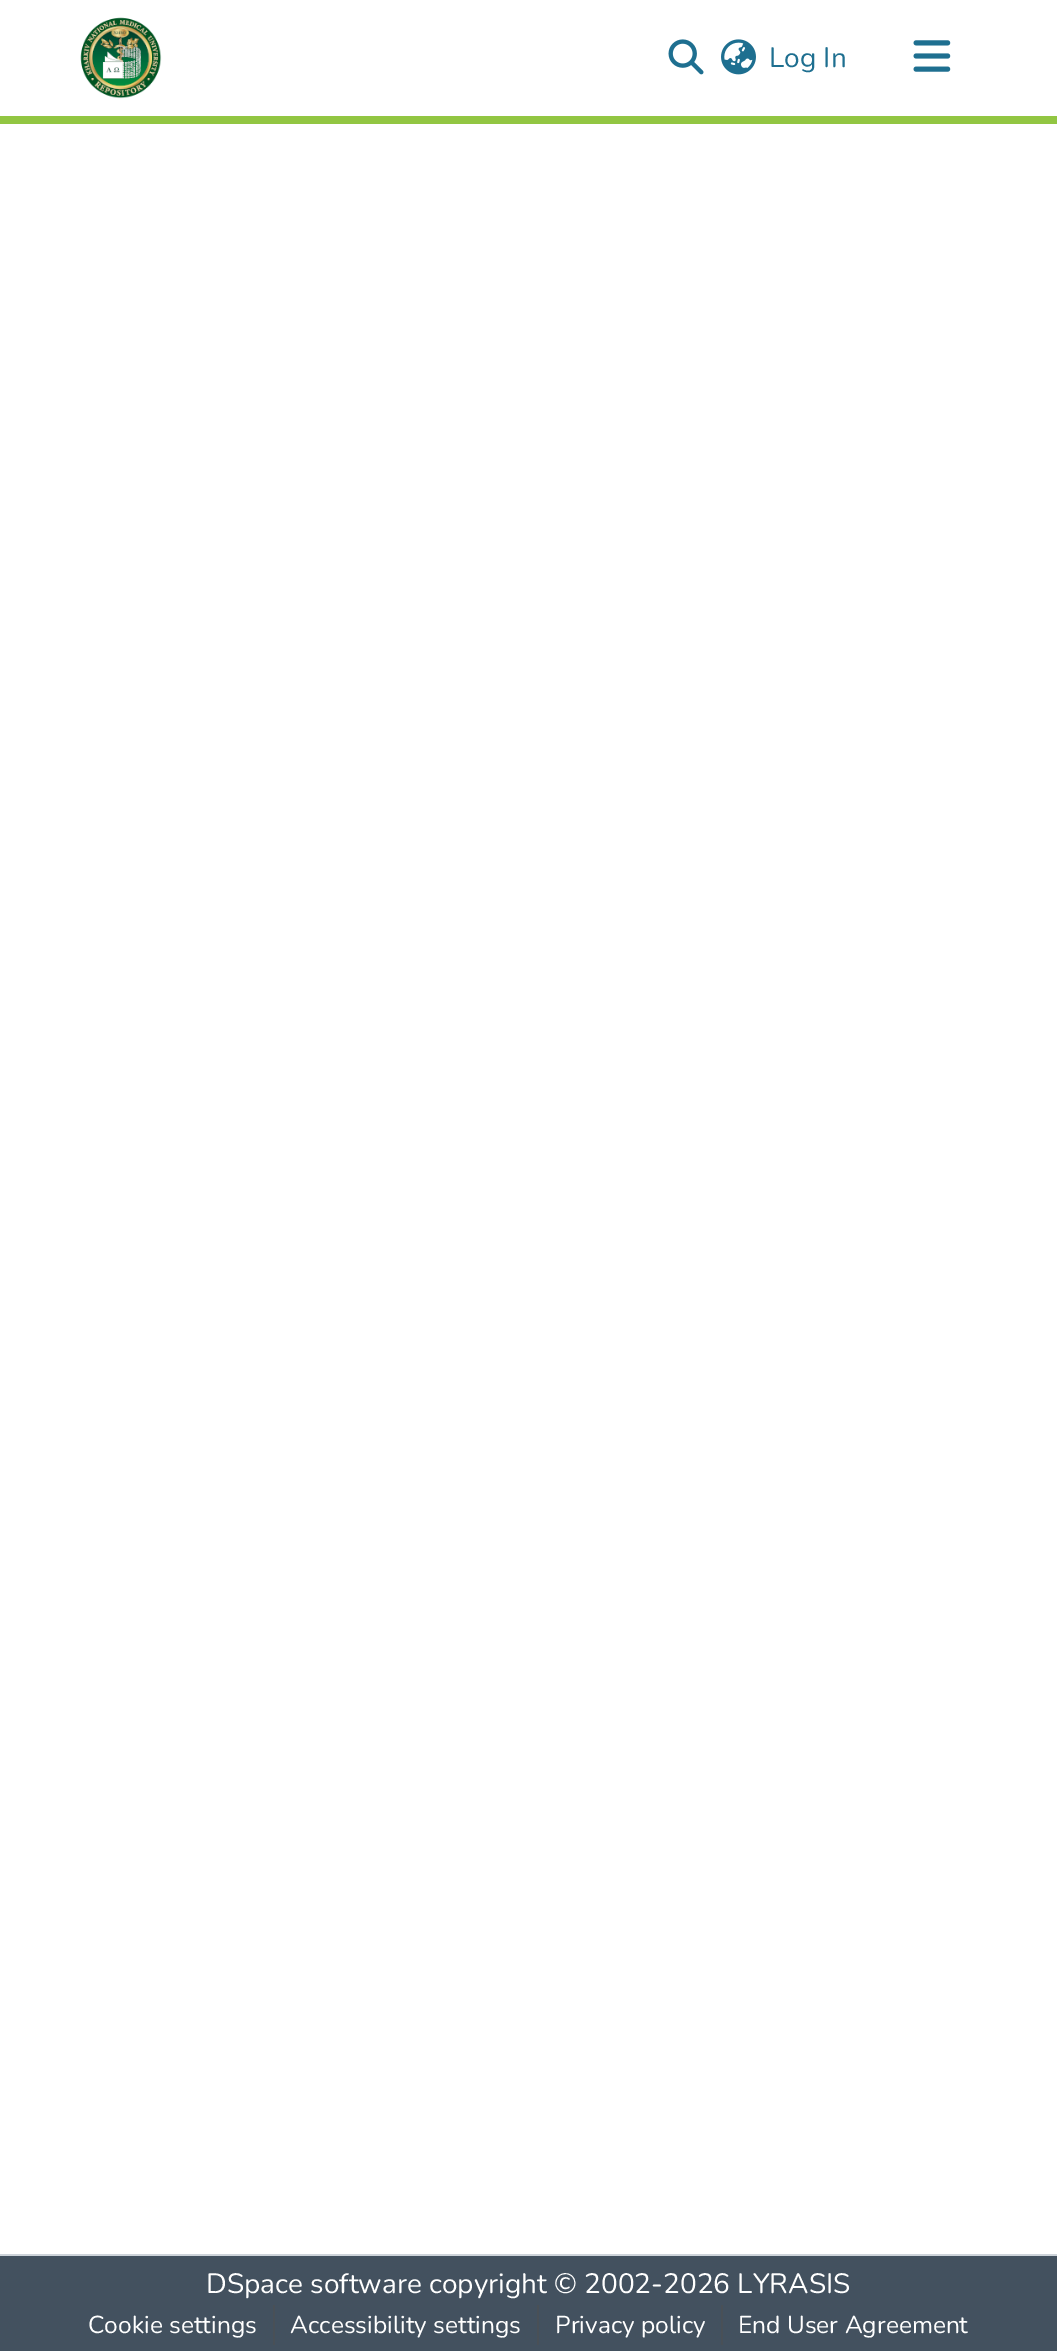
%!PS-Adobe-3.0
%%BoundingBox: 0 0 1057 2351
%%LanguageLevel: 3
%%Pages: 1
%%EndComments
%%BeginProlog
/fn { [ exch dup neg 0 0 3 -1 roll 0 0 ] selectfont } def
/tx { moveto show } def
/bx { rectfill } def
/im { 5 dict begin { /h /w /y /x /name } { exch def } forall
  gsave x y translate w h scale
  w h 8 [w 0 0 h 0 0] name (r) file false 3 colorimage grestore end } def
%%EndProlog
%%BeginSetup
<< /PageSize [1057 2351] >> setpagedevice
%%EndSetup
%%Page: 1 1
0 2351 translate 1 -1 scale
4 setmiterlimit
1 setgray
0 0 1057 2351 bx
0.573 0.776 0.259 setrgbcolor
0 116 1057 8 bx
(image0.raw) 80 17 82 82 im
(image1.raw) 668 39 36 36 im
(image2.raw) 721 39 35 36 im
/Nunito-Regular 28 fn
0.118 0.435 0.565 setrgbcolor
(Log In) 769 67 tx
(image3.raw) 913 40 38 32 im
0.263 0.318 0.373 setrgbcolor
0 2256 1057 95 bx
0.808 0.831 0.855 setrgbcolor
0 2254 1057 2 bx
1 setgray
(DSpace software copyright © 2002-2026 LYRASIS) 206 2293 tx
/Nunito-Regular 24.5 fn
(Cookie settings) 88 2333 tx
0.286 0.314 0.341 setrgbcolor
273 2305 2 40 bx
1 setgray
(Accessibility settings) 290 2333 tx
0.286 0.314 0.341 setrgbcolor
537 2305 2 40 bx
1 setgray
(Privacy policy) 555 2333 tx
0.286 0.314 0.341 setrgbcolor
721 2305 2 40 bx
1 setgray
(End User Agreement) 738 2333 tx
showpage
%%EOF
